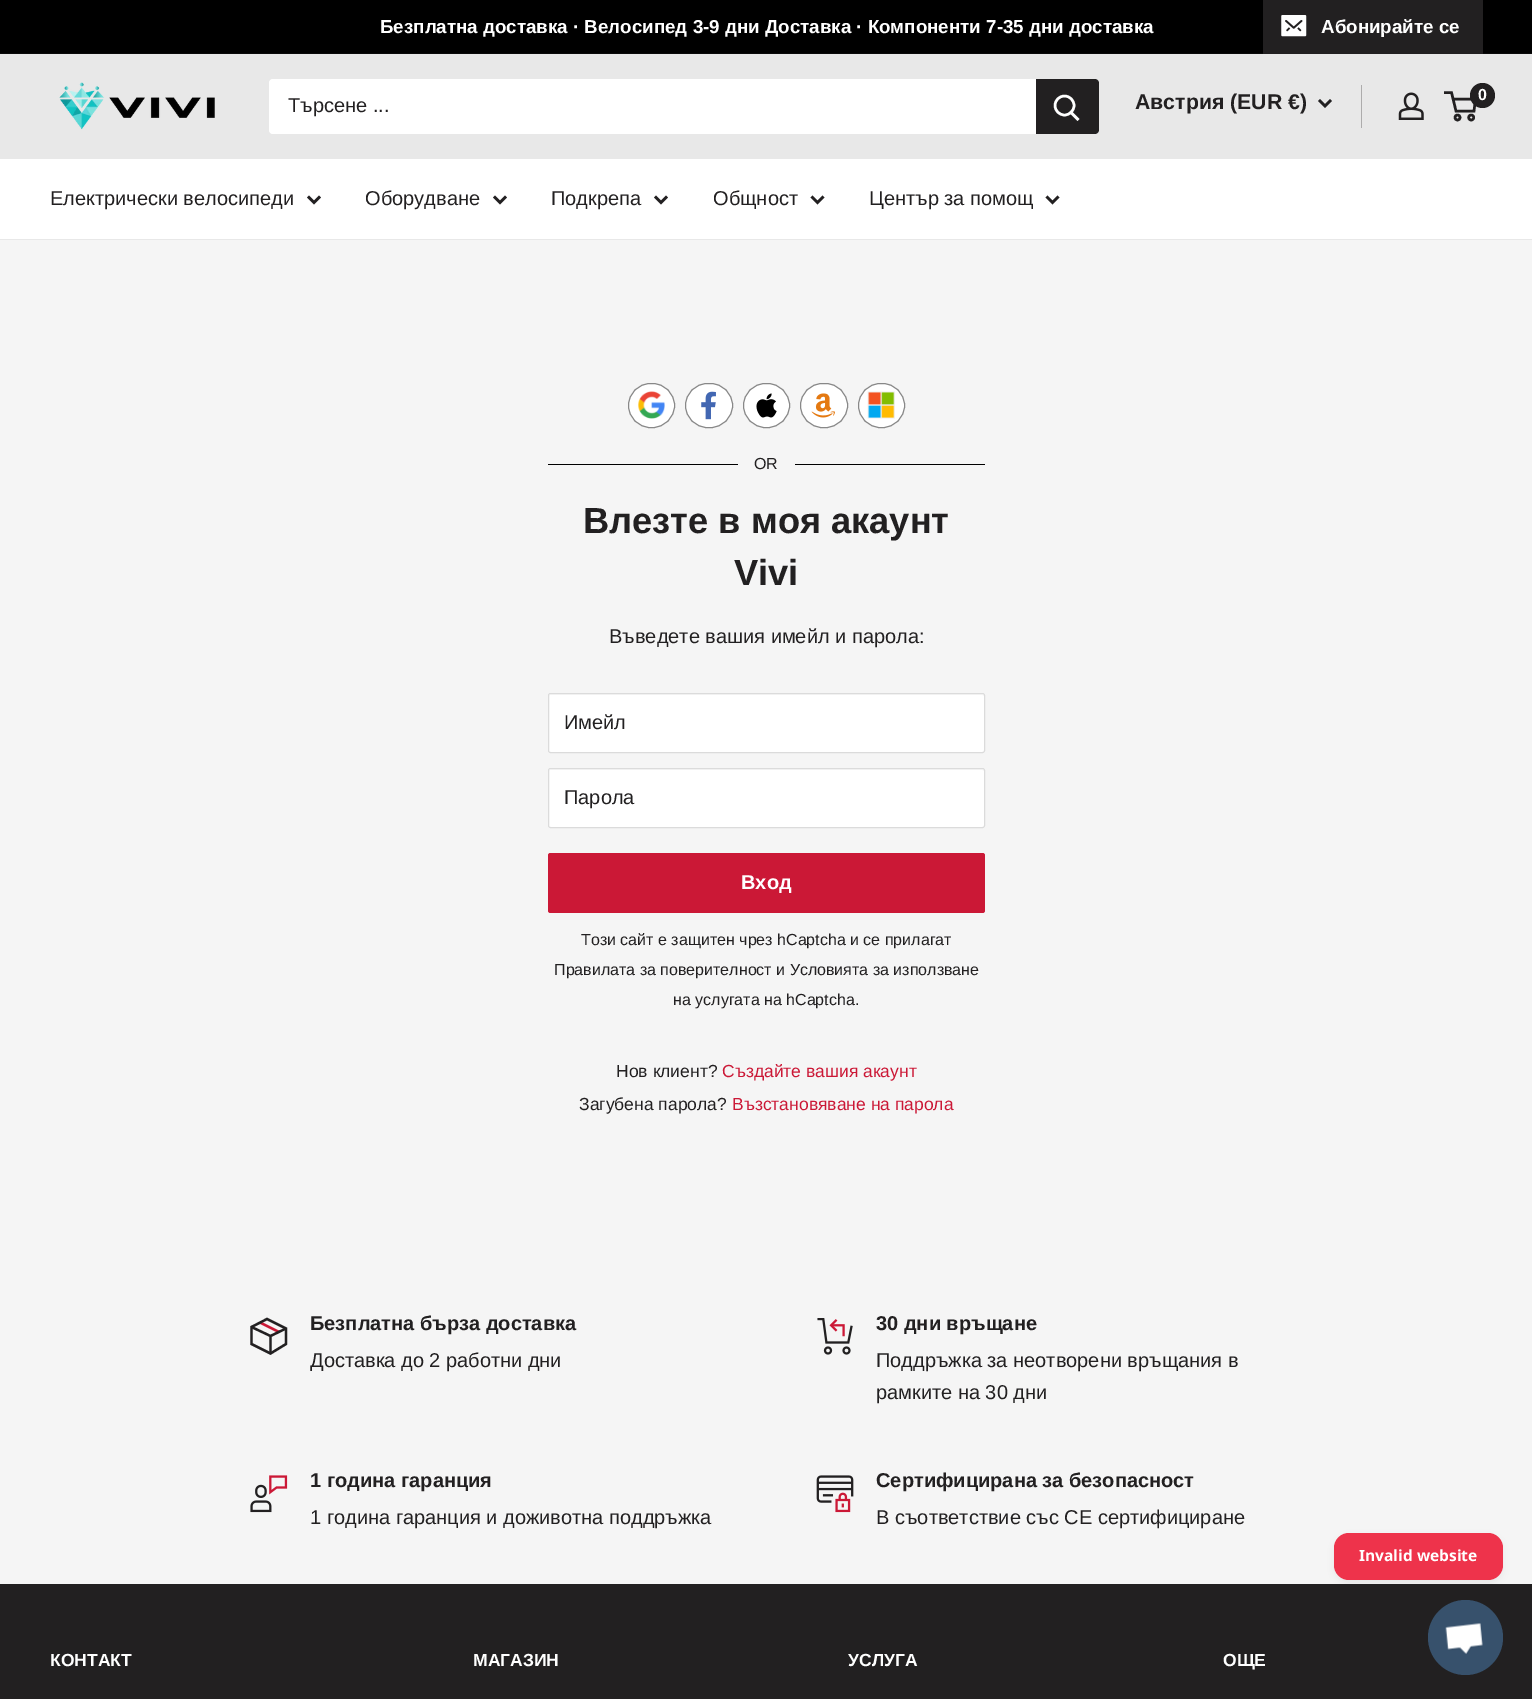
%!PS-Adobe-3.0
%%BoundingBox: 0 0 1532 1699
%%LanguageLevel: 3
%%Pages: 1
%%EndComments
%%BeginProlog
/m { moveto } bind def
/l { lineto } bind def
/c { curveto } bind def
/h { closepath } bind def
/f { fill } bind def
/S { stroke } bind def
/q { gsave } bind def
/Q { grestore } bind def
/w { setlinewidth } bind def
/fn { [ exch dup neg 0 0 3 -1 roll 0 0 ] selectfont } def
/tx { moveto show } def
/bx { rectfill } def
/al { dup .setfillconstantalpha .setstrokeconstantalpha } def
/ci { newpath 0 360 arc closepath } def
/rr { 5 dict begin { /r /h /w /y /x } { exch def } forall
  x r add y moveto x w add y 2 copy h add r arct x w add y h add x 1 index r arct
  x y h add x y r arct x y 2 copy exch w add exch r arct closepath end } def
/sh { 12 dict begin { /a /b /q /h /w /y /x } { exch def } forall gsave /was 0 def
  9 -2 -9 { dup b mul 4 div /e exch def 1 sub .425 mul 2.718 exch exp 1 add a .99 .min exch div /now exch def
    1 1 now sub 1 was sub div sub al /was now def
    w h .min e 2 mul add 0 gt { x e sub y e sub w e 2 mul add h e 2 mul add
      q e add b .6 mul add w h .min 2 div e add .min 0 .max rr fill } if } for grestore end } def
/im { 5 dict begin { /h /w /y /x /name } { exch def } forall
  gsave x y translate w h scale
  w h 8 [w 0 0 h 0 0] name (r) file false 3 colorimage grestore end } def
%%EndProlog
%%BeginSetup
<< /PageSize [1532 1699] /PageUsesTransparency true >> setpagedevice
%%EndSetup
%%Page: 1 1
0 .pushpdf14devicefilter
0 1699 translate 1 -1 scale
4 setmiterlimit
0.961 setgray
0 0 1532 1699 bx
0 setgray
0 0 1532 53 bx
0.039 setgray
0 53 1532 1 bx
/LiberationSans-Bold 18.75 fn
1 setgray
(Безплатна доставка · Велосипед 3-9 дни Доставка · Компоненти 7-35 дни доставка) 380 33 tx
0.133 0.125 0.129 setrgbcolor
1263 52 m 1263 54 l 1483 54 l 1483 1 l 1482 1 l 1482 52 l h f
1263 0 220 52 bx
(image0.raw) 1281 15 26 22 im
1 setgray
(Абонирайте се) 1321 33 tx
0.91 setgray
0 54 1532 105 bx
(image1.raw) 59 82 156 48 im
1 setgray
269 79 830 55 4 rr f
/LiberationSans-Regular 20 fn
0.133 0.125 0.129 setrgbcolor
(Търсене ...) 288 112 tx
1036 79 m 1095 79 l 1097 79 1099 81 1099 83 c 1099 130 l 1099 132 1097 134 1095 134 c 1036 134 l h f
1 setgray
2.5 w
2 setlinecap
1077.5 119 m 1071 112.5 l S
0 setlinecap
1064.5 105.5 9.5 ci S
/LiberationSans-Bold 21.25 fn
0.133 0.125 0.129 setrgbcolor
(Австрия \(EUR €\)) 1135 109 tx
2 setlinecap
1330 101 m 1325 106 l 1320 101 l S
0.678 0.675 0.675 setrgbcolor
1361 85 1 43 bx
(image2.raw) 1398 92 26 28 im
0.133 0.125 0.129 setrgbcolor
0 setlinecap
1457.5 117.5 2.5 ci S
1471.2 117.5 2.5 ci S
1453 99 m 1475.5 99 l 1474 111 l 1456 111 l 1451.5 92.5 l 1444 92.5 l S
1482.5 95.5 12.5 ci f
/LiberationSans-Bold 16 fn
1 setgray
(0) 1478 100 tx
0 159 1532 80 bx
0.91 setgray
0 239 1532 1 bx
/LiberationSans-Regular 20 fn
0.133 0.125 0.129 setrgbcolor
(Електрически велосипеди) 50 205 tx
2 setlinecap
319 197.5 m 314 202.5 l 309 197.5 l S
(Оборудване) 365 205 tx
505 197.5 m 500 202.5 l 495 197.5 l S
(Подкрепа) 551 205 tx
666 197.5 m 661 202.5 l 656 197.5 l S
(Общност) 713 205 tx
822.5 197.5 m 817.5 202.5 l 812.5 197.5 l S
(Център за помощ) 869 205 tx
1057.5 197.5 m 1052.5 202.5 l 1047.5 197.5 l S
1 setgray
628.5 383.5 46 44 22 rr q f Q
0.533 setgray
1 w
0 setlinecap
S
(image3.raw) 638 391 27 28 im
1 setgray
685.5 383.5 47 44 22 rr q f Q
0.533 setgray
S
(image4.raw) 701 391 15 29 im
1 setgray
743.5 383.5 46 44 22 rr q f Q
0.533 setgray
S
(image5.raw) 756 393 21 25 im
1 setgray
800.5 383.5 47 44 22 rr q f Q
0.533 setgray
S
(image6.raw) 811 393 24 25 im
1 setgray
858.5 383.5 46 44 22 rr q f Q
0.533 setgray
S
(image7.raw) 867 391 28 28 im
0 setgray
548 464 190 1 bx
/LiberationSans-Regular 16 fn
0.133 0.125 0.129 setrgbcolor
(OR) 754 469 tx
0 setgray
795 464 190 1 bx
/LiberationSans-Bold 36.25 fn
0.133 0.125 0.129 setrgbcolor
(Влезте в моя акаунт) 583 533 tx
(Vivi) 734 585 tx
/LiberationSans-Regular 20 fn
(Въведете вашия имейл и парола:) 609 643 tx
1 setgray
548 693 437 60 2.5 rr f
0.976 setgray
550 695 m 982 695 l 984 696 l 984 695 984 694 983 694 c 550 694 l 549 695 l 549 696 l h f
0.859 setgray
548.5 693.5 436 59 2 rr S
0.133 0.125 0.129 setrgbcolor
(Имейл) 564 729 tx
1 setgray
548 768 437 60 2.5 rr f
0.976 setgray
550 770 m 982 770 l 984 771 l 984 770 984 769 983 769 c 550 769 l 549 770 l 549 771 l h f
0.859 setgray
548.5 768.5 436 59 2 rr S
0.133 0.125 0.129 setrgbcolor
(Парола) 564 804 tx
0.796 0.094 0.212 setrgbcolor
548 853 437 60 2.5 rr f
/LiberationSans-Bold 20 fn
1 setgray
(Вход) 741 889 tx
/LiberationSans-Regular 16 fn
0.133 0.125 0.129 setrgbcolor
(Този сайт е защитен чрез hCaptcha и се прилагат) 581 945 tx
(Правилата за поверителност и Условията за използване) 554 975 tx
(на услугата на hCaptcha.) 673 1005 tx
/LiberationSans-Regular 17.5 fn
(Нов клиент?) 616 1077 tx
0.796 0.094 0.212 setrgbcolor
(Създайте вашия акаунт) 722 1077 tx
0.133 0.125 0.129 setrgbcolor
(Загубена парола?) 579 1110 tx
0.796 0.094 0.212 setrgbcolor
(Възстановяване на парола) 732 1110 tx
2.3 w
260 1322.5 m 279 1332 l S
0.133 0.125 0.129 setrgbcolor
286 1328.5 m 270.5 1336 l 251.5 1327 l 270.5 1336 m 270.5 1353.5 l S
2 setlinecap
286 1328.5 m 286 1344 l 270.5 1353.5 l 251.5 1344 l 251.5 1327 l 267 1319 l h S
/LiberationSans-Bold 20 fn
(Безплатна бърза доставка) 310 1330 tx
/LiberationSans-Regular 20 fn
(Доставка до 2 работни дни) 310 1367 tx
(image8.raw) 817 1318 36 37 im
/LiberationSans-Bold 20 fn
(30 дни връщане) 876 1330 tx
/LiberationSans-Regular 20 fn
(Поддръжка за неотворени връщания в) 876 1367 tx
(рамките на 30 дни) 876 1399 tx
(image9.raw) 250 1475 38 38 im
/LiberationSans-Bold 20 fn
(1 година гаранция) 310 1487 tx
/LiberationSans-Regular 20 fn
(1 година гаранция и доживотна поддръжка) 310 1524 tx
(image10.raw) 816 1475 38 38 im
/LiberationSans-Bold 20 fn
(Сертифицирана за безопасност) 876 1487 tx
/LiberationSans-Regular 20 fn
(В съответствие със CE сертифициране) 876 1524 tx
0 1584 1532 115 bx
0 setgray
1334 1536 169 48 15 4 0.06 sh
0.933 0.2 0.294 setrgbcolor
1334 1533 169 47 15 rr f
/NotoSans-Bold 15.5 fn
1 setgray
(Invalid website) 1359 1561 tx
0.216 0.318 0.424 setrgbcolor
1465.5 1637.5 37.5 ci f
(image11.raw) 1445 1623 38 31 im
/LiberationSans-Bold 17.5 fn
1 setgray
(КОНТАКТ) 50 1666 tx
(МАГАЗИН) 473 1666 tx
(УСЛУГА) 848 1666 tx
(ОЩЕ) 1223 1666 tx
.poppdf14devicefilter showpage
%%EOF
